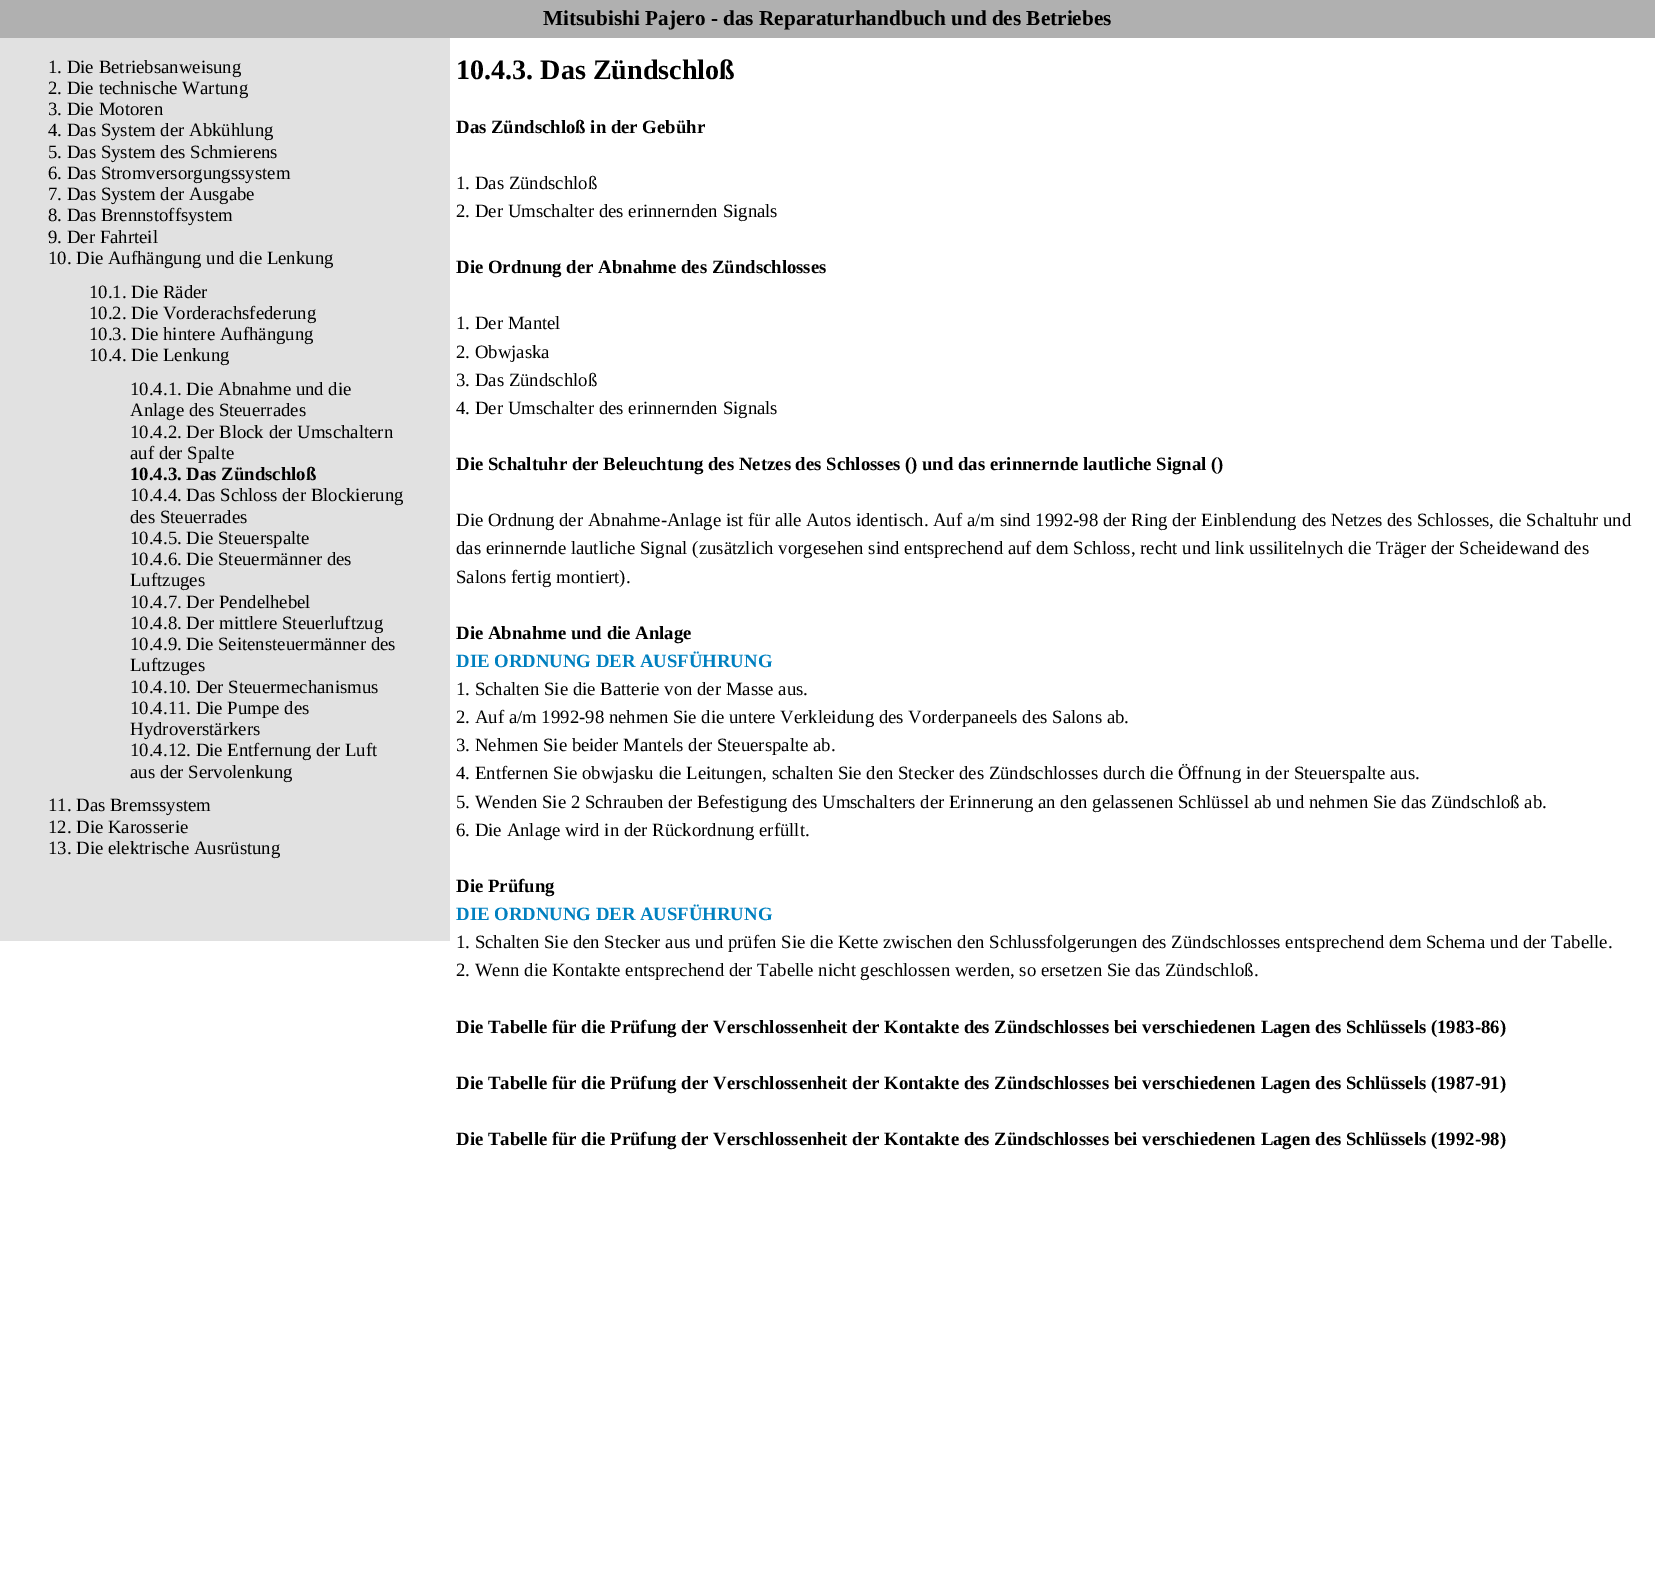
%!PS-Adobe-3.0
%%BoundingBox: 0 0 1655 1575
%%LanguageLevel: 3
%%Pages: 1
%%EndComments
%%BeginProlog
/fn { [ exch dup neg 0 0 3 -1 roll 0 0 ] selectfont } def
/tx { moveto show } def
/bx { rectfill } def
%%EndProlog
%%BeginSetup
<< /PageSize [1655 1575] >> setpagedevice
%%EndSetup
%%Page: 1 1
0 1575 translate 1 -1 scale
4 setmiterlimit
1 setgray
0 0 1655 1575 bx
0.69 setgray
0 0 1655 38 bx
/LiberationSerif-Bold 21.25 fn
0 setgray
(Mitsubishi Pajero - das Reparaturhandbuch und des Betriebes) 543 25 tx
0.882 setgray
0 38 450 903 bx
/LiberationSerif-Regular 18.75 fn
0 setgray
(1. Die Betriebsanweisung) 48 73 tx
(2. Die technische Wartung) 48 94 tx
(3. Die Motoren) 48 115 tx
(4. Das System der Abkühlung) 48 136 tx
(5. Das System des Schmierens) 48 158 tx
(6. Das Stromversorgungssystem) 48 179 tx
(7. Das System der Ausgabe) 48 200 tx
(8. Das Brennstoffsystem) 48 221 tx
(9. Der Fahrteil) 48 243 tx
(10. Die Aufhängung und die Lenkung) 48 264 tx
(10.1. Die Räder) 89 298 tx
(10.2. Die Vorderachsfederung) 89 319 tx
(10.3. Die hintere Aufhängung) 89 340 tx
(10.4. Die Lenkung) 89 361 tx
(10.4.1. Die Abnahme und die) 130 395 tx
(Anlage des Steuerrades) 130 416 tx
(10.4.2. Der Block der Umschaltern) 130 438 tx
(auf der Spalte) 130 459 tx
/LiberationSerif-Bold 18.75 fn
(10.4.3. Das Zündschloß) 130 480 tx
/LiberationSerif-Regular 18.75 fn
(10.4.4. Das Schloss der Blockierung) 130 501 tx
(des Steuerrades) 130 523 tx
(10.4.5. Die Steuerspalte) 130 544 tx
(10.4.6. Die Steuermänner des) 130 565 tx
(Luftzuges) 130 586 tx
(10.4.7. Der Pendelhebel) 130 608 tx
(10.4.8. Der mittlere Steuerluftzug) 130 629 tx
(10.4.9. Die Seitensteuermänner des) 130 650 tx
(Luftzuges) 130 671 tx
(10.4.10. Der Steuermechanismus) 130 693 tx
(10.4.11. Die Pumpe des) 130 714 tx
(Hydroverstärkers) 130 735 tx
(10.4.12. Die Entfernung der Luft) 130 756 tx
(aus der Servolenkung) 130 778 tx
(11. Das Bremssystem) 48 811 tx
(12. Die Karosserie) 48 833 tx
(13. Die elektrische Ausrüstung) 48 854 tx
/LiberationSerif-Bold 28.1 fn
(10.4.3. Das Zündschloß) 456 79 tx
/LiberationSerif-Bold 18.75 fn
(Das Zündschloß in der Gebühr) 456 133 tx
/LiberationSerif-Regular 18.75 fn
(1. Das Zündschloß) 456 189 tx
(2. Der Umschalter des erinnernden Signals) 456 217 tx
/LiberationSerif-Bold 18.75 fn
(Die Ordnung der Abnahme des Zündschlosses) 456 273 tx
/LiberationSerif-Regular 18.75 fn
(1. Der Mantel) 456 329 tx
(2. Obwjaska) 456 358 tx
(3. Das Zündschloß) 456 386 tx
(4. Der Umschalter des erinnernden Signals) 456 414 tx
/LiberationSerif-Bold 18.75 fn
(Die Schaltuhr der Beleuchtung des Netzes des Schlosses \(\) und das erinnernde lautliche Signal \(\)) 456 470 tx
/LiberationSerif-Regular 18.75 fn
(Die Ordnung der Abnahme-Anlage ist für alle Autos identisch. Auf a/m sind 1992-98 der Ring der Einblendung des Netzes des Schlosses, die Schaltuhr und) 456 526 tx
(das erinnernde lautliche Signal \(zusätzlich vorgesehen sind entsprechend auf dem Schloss, recht und link ussilitelnych die Träger der Scheidewand des) 456 554 tx
(Salons fertig montiert\).) 456 583 tx
/LiberationSerif-Bold 18.75 fn
(Die Abnahme und die Anlage) 456 639 tx
0 0.502 0.753 setrgbcolor
(DIE ORDNUNG DER AUSFÜHRUNG) 456 667 tx
/LiberationSerif-Regular 18.75 fn
0 setgray
(1. Schalten Sie die Batterie von der Masse aus.) 456 695 tx
(2. Auf a/m 1992-98 nehmen Sie die untere Verkleidung des Vorderpaneels des Salons ab.) 456 723 tx
(3. Nehmen Sie beider Mantels der Steuerspalte ab.) 456 751 tx
(4. Entfernen Sie obwjasku die Leitungen, schalten Sie den Stecker des Zündschlosses durch die Öffnung in der Steuerspalte aus.) 456 779 tx
(5. Wenden Sie 2 Schrauben der Befestigung des Umschalters der Erinnerung an den gelassenen Schlüssel ab und nehmen Sie das Zündschloß ab.) 456 808 tx
(6. Die Anlage wird in der Rückordnung erfüllt.) 456 836 tx
/LiberationSerif-Bold 18.75 fn
(Die Prüfung) 456 892 tx
0 0.502 0.753 setrgbcolor
(DIE ORDNUNG DER AUSFÜHRUNG) 456 920 tx
/LiberationSerif-Regular 18.75 fn
0 setgray
(1. Schalten Sie den Stecker aus und prüfen Sie die Kette zwischen den Schlussfolgerungen des Zündschlosses entsprechend dem Schema und der Tabelle.) 456 948 tx
(2. Wenn die Kontakte entsprechend der Tabelle nicht geschlossen werden, so ersetzen Sie das Zündschloß.) 456 976 tx
/LiberationSerif-Bold 18.75 fn
(Die Tabelle für die Prüfung der Verschlossenheit der Kontakte des Zündschlosses bei verschiedenen Lagen des Schlüssels \(1983-86\)) 456 1033 tx
(Die Tabelle für die Prüfung der Verschlossenheit der Kontakte des Zündschlosses bei verschiedenen Lagen des Schlüssels \(1987-91\)) 456 1089 tx
(Die Tabelle für die Prüfung der Verschlossenheit der Kontakte des Zündschlosses bei verschiedenen Lagen des Schlüssels \(1992-98\)) 456 1145 tx
showpage
%%EOF
